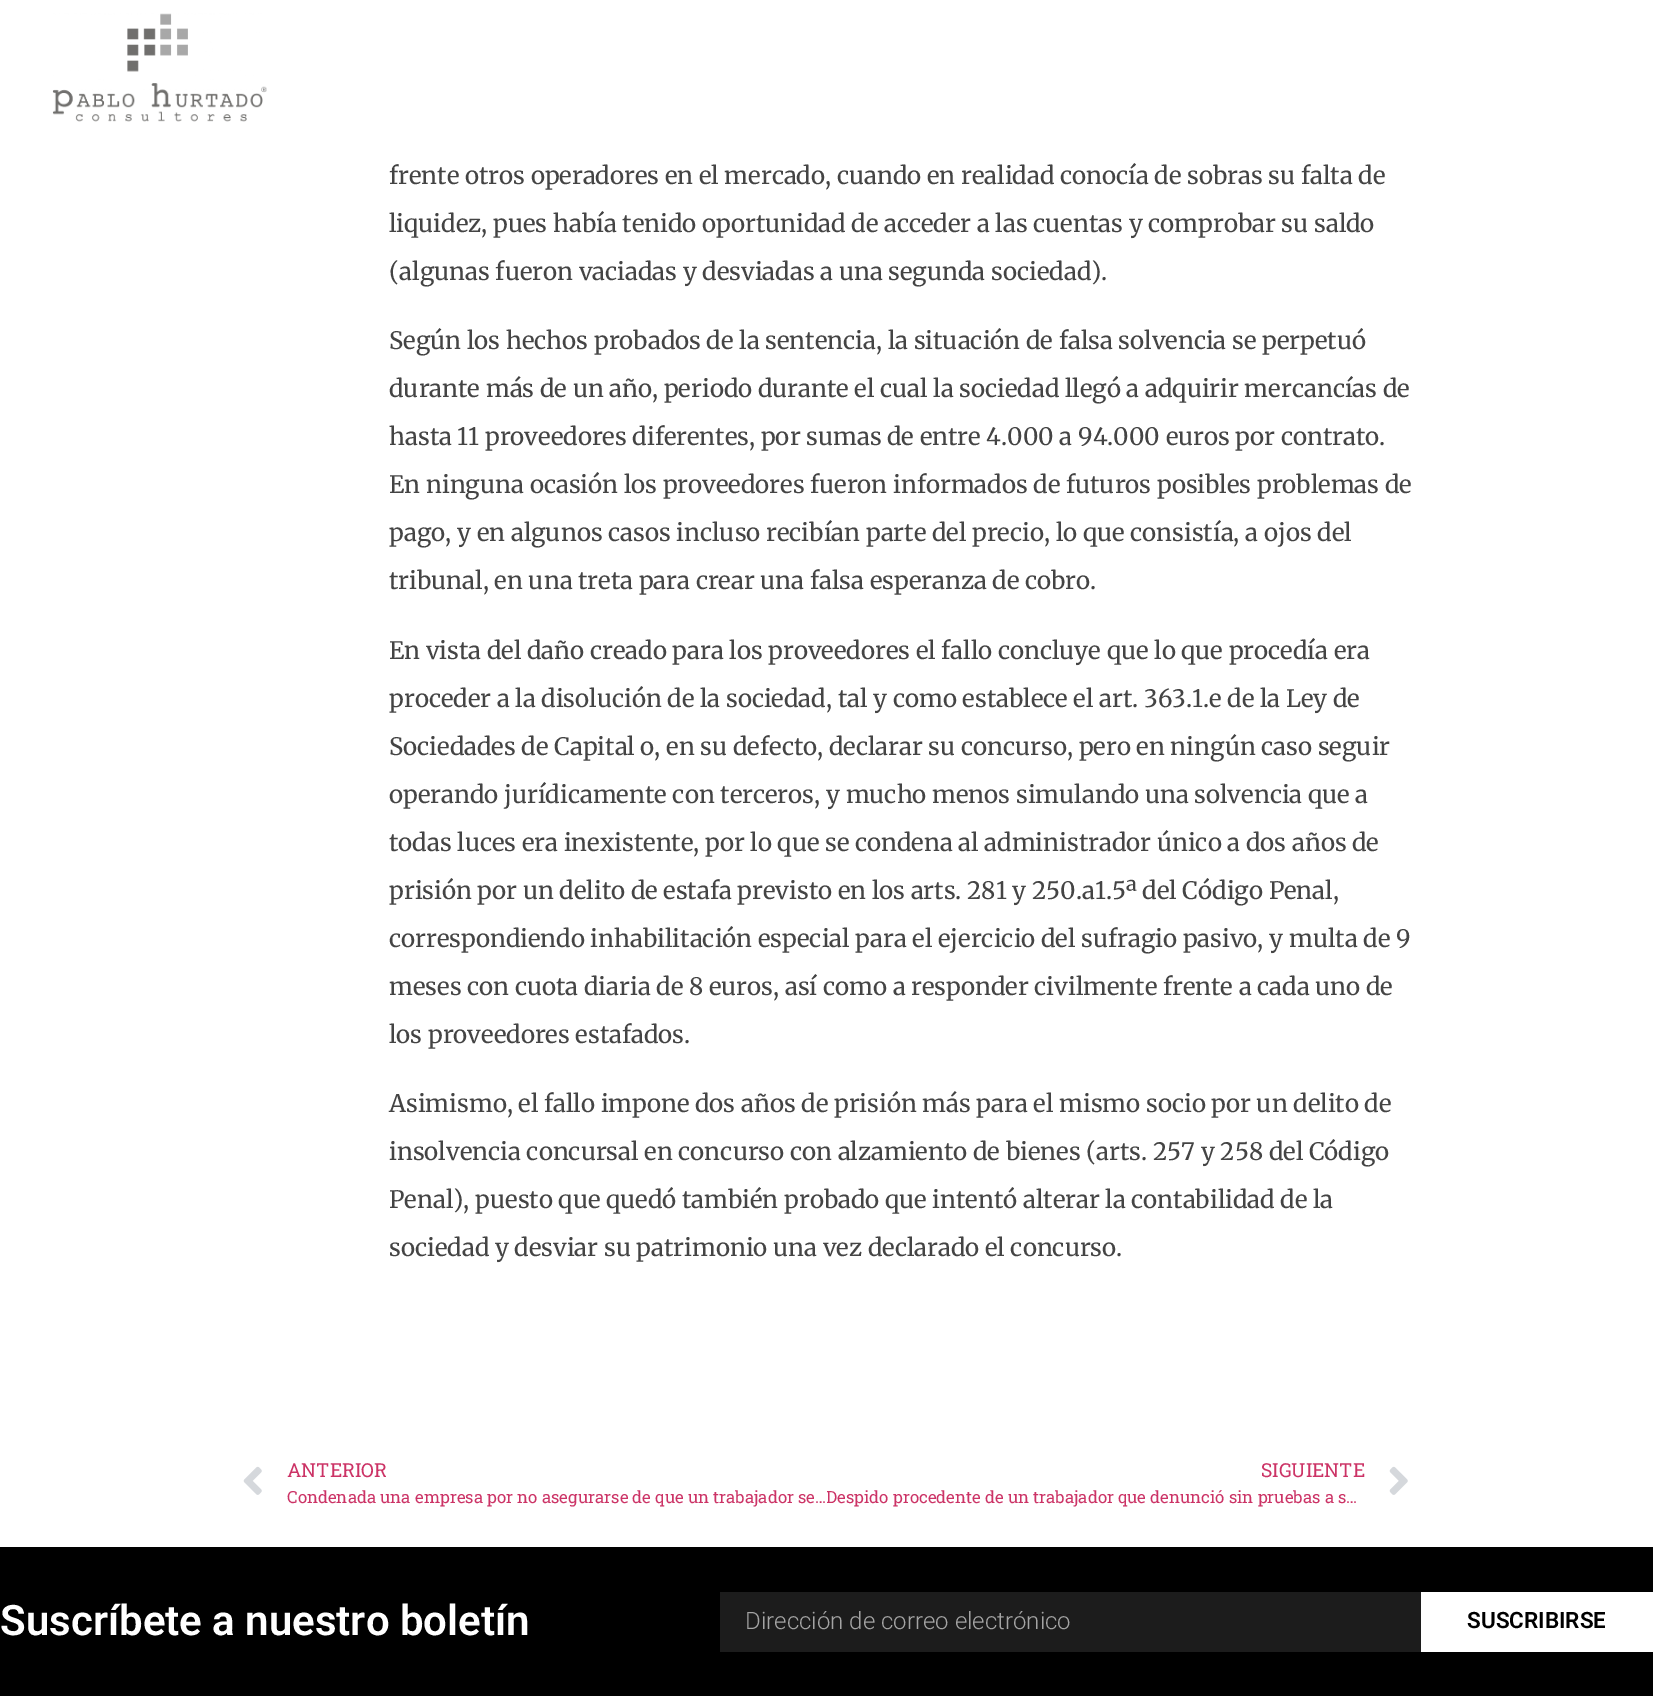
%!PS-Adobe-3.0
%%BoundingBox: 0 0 1653 1696
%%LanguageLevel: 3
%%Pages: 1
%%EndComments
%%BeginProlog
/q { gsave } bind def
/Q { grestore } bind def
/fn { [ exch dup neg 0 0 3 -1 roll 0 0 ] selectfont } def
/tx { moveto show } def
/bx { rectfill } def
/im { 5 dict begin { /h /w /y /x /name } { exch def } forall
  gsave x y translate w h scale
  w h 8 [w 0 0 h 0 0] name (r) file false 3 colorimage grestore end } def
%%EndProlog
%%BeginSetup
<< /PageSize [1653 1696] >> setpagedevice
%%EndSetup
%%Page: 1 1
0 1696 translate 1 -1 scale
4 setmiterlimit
1 setgray
0 0 1653 1696 bx
(image0.raw) 52 13 215 109 im
/Merriweather-Regular 24 fn
0.267 setgray
(frente otros operadores en el mercado, cuando en realidad conocía de sobras su falta de) 389 184 tx
(liquidez, pues había tenido oportunidad de acceder a las cuentas y comprobar su saldo) 389 232 tx
(\(algunas fueron vaciadas y desviadas a una segunda sociedad\).) 389 280 tx
(Según los hechos probados de la sentencia, la situación de falsa solvencia se perpetuó) 389 349 tx
(durante más de un año, periodo durante el cual la sociedad llegó a adquirir mercancías de) 389 397 tx
(hasta 11 proveedores diferentes, por sumas de entre 4.000 a 94.000 euros por contrato.) 389 445 tx
(En ninguna ocasión los proveedores fueron informados de futuros posibles problemas de) 389 493 tx
(pago, y en algunos casos incluso recibían parte del precio, lo que consistía, a ojos del) 389 541 tx
(tribunal, en una treta para crear una falsa esperanza de cobro.) 389 589 tx
(En vista del daño creado para los proveedores el fallo concluye que lo que procedía era) 389 659 tx
(proceder a la disolución de la sociedad, tal y como establece el art. 363.1.e de la Ley de) 389 707 tx
(Sociedades de Capital o, en su defecto, declarar su concurso, pero en ningún caso seguir) 389 755 tx
(operando jurídicamente con terceros, y mucho menos simulando una solvencia que a) 389 803 tx
(todas luces era inexistente, por lo que se condena al administrador único a dos años de) 389 851 tx
(prisión por un delito de estafa previsto en los arts. 281 y 250.a1.5ª del Código Penal,) 389 899 tx
(correspondiendo inhabilitación especial para el ejercicio del sufragio pasivo, y multa de 9) 389 947 tx
(meses con cuota diaria de 8 euros, así como a responder civilmente frente a cada uno de) 389 995 tx
(los proveedores estafados.) 389 1043 tx
(Asimismo, el fallo impone dos años de prisión más para el mismo socio por un delito de) 389 1112 tx
(insolvencia concursal en concurso con alzamiento de bienes \(arts. 257 y 258 del Código) 389 1160 tx
(Penal\), puesto que quedó también probado que intentó alterar la contabilidad de la) 389 1208 tx
(sociedad y desviar su patrimonio una vez declarado el concurso.) 389 1256 tx
(image1.raw) 243 1466 19 29 im
/RobotoSlab-Regular 19.25 fn
0.8 0.2 0.4 setrgbcolor
(ANTERIOR) 287 1477 tx
/RobotoSlab-Regular 16.8 fn
(Condenada una empresa por no asegurarse de que un trabajador se…) 287 1503 tx
/RobotoSlab-Regular 19.25 fn
(SIGUIENTE) 1261 1477 tx
q
827 1485 538 26 rectclip
/RobotoSlab-Regular 16.8 fn
(Despido procedente de un trabajador que denunció sin pruebas a s…) 826 1503 tx
Q
(image2.raw) 1389 1466 19 29 im
0 setgray
0 1547 1653 149 bx
/Roboto-SemiBold 42 fn
1 setgray
(Suscríbete a nuestro boletín) 0 1635 tx
0.11 setgray
720 1592 701 60 bx
/Roboto-Light 24 fn
0.643 setgray
(Dirección de correo electrónico) 745 1629 tx
1 setgray
1421 1592 232 60 bx
/Roboto-SemiBold 22.5 fn
0 setgray
(SUSCRIBIRSE) 1467 1628 tx
showpage
%%EOF
